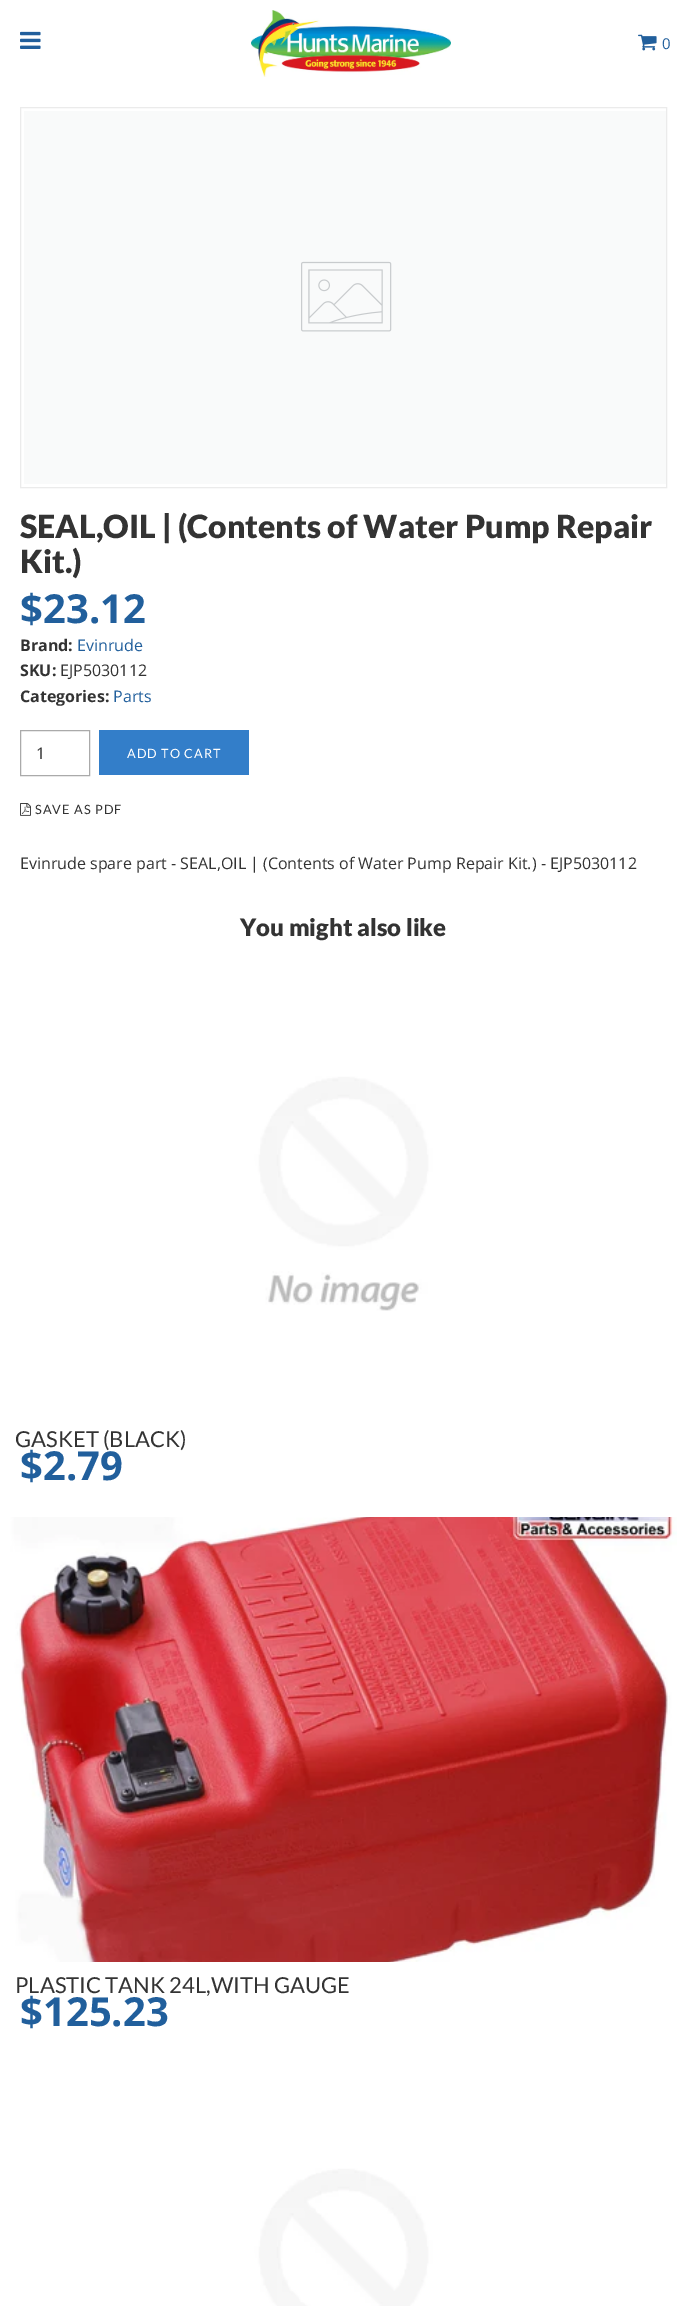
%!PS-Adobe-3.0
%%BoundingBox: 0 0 687 2306
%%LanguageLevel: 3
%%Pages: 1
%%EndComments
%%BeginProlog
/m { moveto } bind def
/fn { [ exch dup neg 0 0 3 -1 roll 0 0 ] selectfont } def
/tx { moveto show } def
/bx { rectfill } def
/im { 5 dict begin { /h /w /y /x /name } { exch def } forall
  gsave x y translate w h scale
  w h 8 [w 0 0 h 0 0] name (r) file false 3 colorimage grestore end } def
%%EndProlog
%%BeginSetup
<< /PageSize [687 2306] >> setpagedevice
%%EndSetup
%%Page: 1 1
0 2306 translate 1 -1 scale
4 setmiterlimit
1 setgray
0 0 687 2306 bx
(image0.raw) 20 31 21 18 im
(image1.raw) 251 10 200 67 im
(image2.raw) 638 34 19 17 im
/OpenSans-Regular 15 fn
0.129 0.373 0.612 setrgbcolor
662 49 m 1 0 (0) ashow
0.922 setgray
20.5 107.5 646 380 rectstroke
0.976 0.98 0.98 setrgbcolor
24 111 642 373 bx
(image3.raw) 301 261 91 71 im
/Lato-Black 32 fn
0.2 setgray
(SEAL,OIL | \(Contents of Water Pump Repair) 20 538 tx
(Kit.\)) 20 573 tx
/OpenSans-Bold 40 fn
0.129 0.373 0.612 setrgbcolor
($23.12) 20 623 tx
/OpenSans-Bold 16 fn
0.2 setgray
(Brand:) 20 651 tx
/OpenSans-Regular 16 fn
0.129 0.373 0.612 setrgbcolor
(Evinrude) 77 651 tx
/OpenSans-Bold 16 fn
0.2 setgray
(SKU:) 20 676 tx
/OpenSans-Regular 16 fn
(EJP5030112) 60 676 tx
/OpenSans-Bold 16 fn
(Categories:) 20 702 tx
/OpenSans-Regular 16 fn
0.129 0.373 0.612 setrgbcolor
(Parts) 113 702 tx
0.667 setgray
20.5 730.5 69 45 rectstroke
0.2 setgray
(1) 36 759 tx
0.2 0.494 0.788 setrgbcolor
99 730 150 45 bx
/Lato-Regular 12.75 fn
1 setgray
127 758 m 1 0 (ADD TO CART) ashow
(image4.raw) 20 803 11 13 im
0.2 setgray
35 814 m 1 0 (SAVE AS PDF) ashow
/OpenSans-Regular 16 fn
(Evinrude spare part - SEAL,OIL | \(Contents of Water Pump Repair Kit.\) - EJP5030112) 20 869 tx
/Lato-Black 24 fn
(You might also like) 240 936 tx
(image5.raw) 10 972 667 444 im
/Lato-Regular 22 fn
(GASKET \(BLACK\)) 15 1447 tx
/OpenSans-Bold 40 fn
0.129 0.373 0.612 setrgbcolor
($2.79) 20 1480 tx
(image6.raw) 10 1517 667 445 im
/Lato-Regular 22 fn
0.2 setgray
(PLASTIC TANK 24L,WITH GAUGE) 15 1993 tx
/OpenSans-Bold 40 fn
0.129 0.373 0.612 setrgbcolor
($125.23) 20 2026 tx
(image7.raw) 10 2063 667 243 im
showpage
%%EOF
